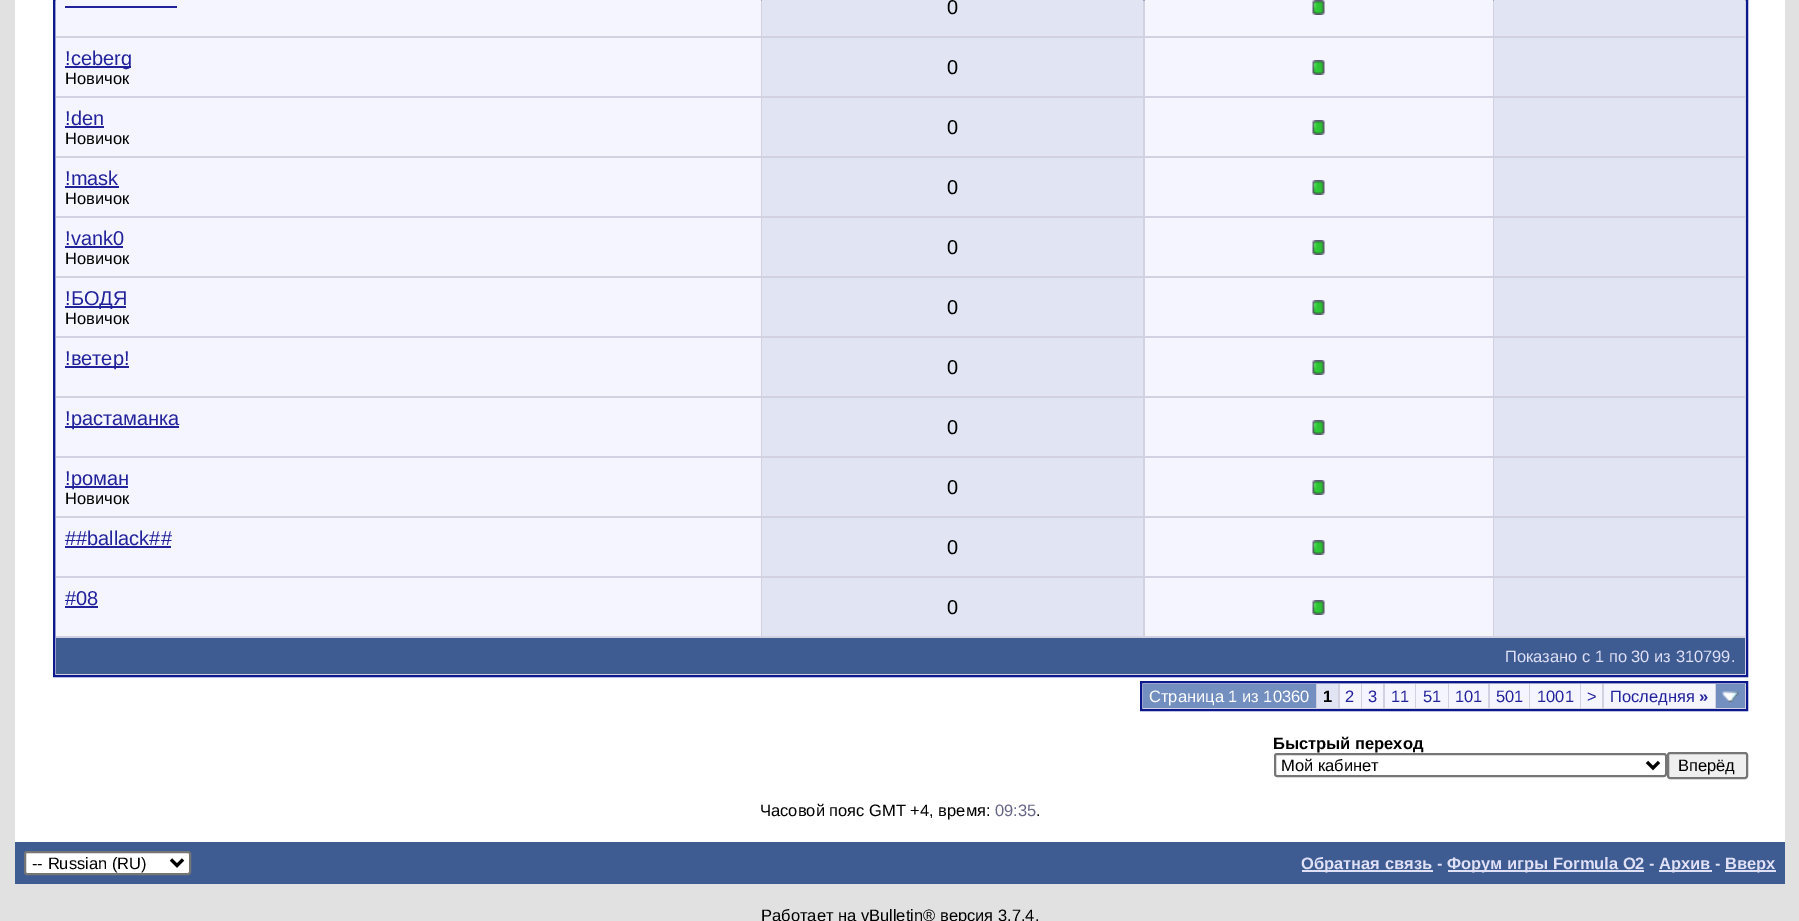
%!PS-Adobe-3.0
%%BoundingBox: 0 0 1799 921
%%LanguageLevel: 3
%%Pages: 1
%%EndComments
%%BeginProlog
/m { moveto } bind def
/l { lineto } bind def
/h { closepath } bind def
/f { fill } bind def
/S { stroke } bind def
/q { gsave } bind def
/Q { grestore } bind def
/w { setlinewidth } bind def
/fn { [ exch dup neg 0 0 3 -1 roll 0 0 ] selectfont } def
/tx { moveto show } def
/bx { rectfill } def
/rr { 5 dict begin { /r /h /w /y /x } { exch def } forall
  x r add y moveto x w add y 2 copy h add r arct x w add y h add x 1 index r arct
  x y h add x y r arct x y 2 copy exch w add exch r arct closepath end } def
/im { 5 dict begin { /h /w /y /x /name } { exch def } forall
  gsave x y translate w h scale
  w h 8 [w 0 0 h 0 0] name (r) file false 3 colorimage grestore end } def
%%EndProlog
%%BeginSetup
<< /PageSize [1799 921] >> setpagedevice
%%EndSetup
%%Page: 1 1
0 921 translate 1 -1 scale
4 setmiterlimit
0.882 0.882 0.886 setrgbcolor
0 0 1799 921 bx
1 setgray
15 0 1770 842 bx
0.82 0.82 0.882 setrgbcolor
54 -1 m 1747 -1 l 1747 676 l 54 676 l h q f Q
0.043 0.098 0.549 setrgbcolor
2 w
S
0.961 0.961 1 setrgbcolor
56 0 705 36 bx
0.133 0.133 0.612 setrgbcolor
65 6 112 2 bx
0.882 0.894 0.949 setrgbcolor
762 0 381 36 bx
/LiberationSans-Regular 20 fn
0 setgray
(0) 947 14 tx
0.961 0.961 1 setrgbcolor
1145 0 348 36 bx
(image0.raw) 1312 0 13 15 im
0.882 0.894 0.949 setrgbcolor
1494 0 251 36 bx
0.961 0.961 1 setrgbcolor
56 38 705 58 bx
0.133 0.133 0.612 setrgbcolor
65 66 66 2 bx
(!ceberg) 65 65 tx
/LiberationSans-Regular 16.5 fn
0 setgray
(Новичок) 65 84 tx
0.882 0.894 0.949 setrgbcolor
762 38 381 58 bx
/LiberationSans-Regular 20 fn
0 setgray
(0) 947 74 tx
0.961 0.961 1 setrgbcolor
1145 38 348 58 bx
(image0.raw) 1312 60 13 15 im
0.882 0.894 0.949 setrgbcolor
1494 38 251 58 bx
0.961 0.961 1 setrgbcolor
56 98 705 58 bx
0.133 0.133 0.612 setrgbcolor
(!den) 65 125 tx
65 126 39 2 bx
/LiberationSans-Regular 16.5 fn
0 setgray
(Новичок) 65 144 tx
0.882 0.894 0.949 setrgbcolor
762 98 381 58 bx
/LiberationSans-Regular 20 fn
0 setgray
(0) 947 134 tx
0.961 0.961 1 setrgbcolor
1145 98 348 58 bx
(image0.raw) 1312 120 13 15 im
0.882 0.894 0.949 setrgbcolor
1494 98 251 58 bx
0.961 0.961 1 setrgbcolor
56 158 705 58 bx
0.133 0.133 0.612 setrgbcolor
(!mask) 65 185 tx
65 186 54 2 bx
/LiberationSans-Regular 16.5 fn
0 setgray
(Новичок) 65 204 tx
0.882 0.894 0.949 setrgbcolor
762 158 381 58 bx
/LiberationSans-Regular 20 fn
0 setgray
(0) 947 194 tx
0.961 0.961 1 setrgbcolor
1145 158 348 58 bx
(image0.raw) 1312 180 13 15 im
0.882 0.894 0.949 setrgbcolor
1494 158 251 58 bx
0.961 0.961 1 setrgbcolor
56 218 705 58 bx
0.133 0.133 0.612 setrgbcolor
(!vank0) 65 245 tx
65 246 58 2 bx
/LiberationSans-Regular 16.5 fn
0 setgray
(Новичок) 65 264 tx
0.882 0.894 0.949 setrgbcolor
762 218 381 58 bx
/LiberationSans-Regular 20 fn
0 setgray
(0) 947 254 tx
0.961 0.961 1 setrgbcolor
1145 218 348 58 bx
(image0.raw) 1312 240 13 15 im
0.882 0.894 0.949 setrgbcolor
1494 218 251 58 bx
0.961 0.961 1 setrgbcolor
56 278 705 58 bx
0.133 0.133 0.612 setrgbcolor
65 306 61 2 bx
(!БОДЯ) 65 305 tx
/LiberationSans-Regular 16.5 fn
0 setgray
(Новичок) 65 324 tx
0.882 0.894 0.949 setrgbcolor
762 278 381 58 bx
/LiberationSans-Regular 20 fn
0 setgray
(0) 947 314 tx
0.961 0.961 1 setrgbcolor
1145 278 348 58 bx
(image0.raw) 1312 300 13 15 im
0.882 0.894 0.949 setrgbcolor
1494 278 251 58 bx
0.961 0.961 1 setrgbcolor
56 338 705 58 bx
0.133 0.133 0.612 setrgbcolor
65 366 64 2 bx
(!ветер!) 65 365 tx
0.882 0.894 0.949 setrgbcolor
762 338 381 58 bx
0 setgray
(0) 947 374 tx
0.961 0.961 1 setrgbcolor
1145 338 348 58 bx
(image0.raw) 1312 360 13 15 im
0.882 0.894 0.949 setrgbcolor
1494 338 251 58 bx
0.961 0.961 1 setrgbcolor
56 398 705 58 bx
0.133 0.133 0.612 setrgbcolor
65 426 114 2 bx
(!растаманка) 65 425 tx
0.882 0.894 0.949 setrgbcolor
762 398 381 58 bx
0 setgray
(0) 947 434 tx
0.961 0.961 1 setrgbcolor
1145 398 348 58 bx
(image0.raw) 1312 420 13 15 im
0.882 0.894 0.949 setrgbcolor
1494 398 251 58 bx
0.961 0.961 1 setrgbcolor
56 458 705 58 bx
0.133 0.133 0.612 setrgbcolor
65 486 63 2 bx
(!роман) 65 485 tx
/LiberationSans-Regular 16.5 fn
0 setgray
(Новичок) 65 504 tx
0.882 0.894 0.949 setrgbcolor
762 458 381 58 bx
/LiberationSans-Regular 20 fn
0 setgray
(0) 947 494 tx
0.961 0.961 1 setrgbcolor
1145 458 348 58 bx
(image0.raw) 1312 480 13 15 im
0.882 0.894 0.949 setrgbcolor
1494 458 251 58 bx
0.961 0.961 1 setrgbcolor
56 518 705 58 bx
0.133 0.133 0.612 setrgbcolor
(##ballack##) 65 545 tx
65 546 106 2 bx
0.961 0.961 1 setrgbcolor
1145 518 348 58 bx
(image0.raw) 1312 540 13 15 im
0.882 0.894 0.949 setrgbcolor
1494 518 251 58 bx
762 518 381 58 bx
0 setgray
(0) 947 554 tx
0.961 0.961 1 setrgbcolor
56 578 705 58 bx
0.133 0.133 0.612 setrgbcolor
(#08) 65 605 tx
65 606 33 2 bx
0.961 0.961 1 setrgbcolor
1145 578 348 58 bx
(image0.raw) 1312 600 13 15 im
0.882 0.894 0.949 setrgbcolor
1494 578 251 58 bx
762 578 381 58 bx
0 setgray
(0) 947 614 tx
0.243 0.361 0.573 setrgbcolor
56 638 1689 36 bx
/LiberationSans-Regular 16.5 fn
0.878 0.878 0.965 setrgbcolor
(Показано с 1 по 30 из 310799.) 1505 662 tx
0.82 0.82 0.882 setrgbcolor
1141 682 m 1747 682 l 1747 710 l 1141 710 l h q f Q
0.043 0.098 0.549 setrgbcolor
S
0.451 0.561 0.749 setrgbcolor
1143 684 173 24 bx
1 setgray
(Страница 1 из 10360) 1149 702 tx
0.882 0.894 0.949 setrgbcolor
1317 684 21 24 bx
/LiberationSans-Bold 16.5 fn
0 setgray
(1) 1323 702 tx
0.961 0.961 1 setrgbcolor
1340 684 21 24 bx
/LiberationSans-Regular 16.5 fn
0.133 0.133 0.612 setrgbcolor
(2) 1345 702 tx
0.961 0.961 1 setrgbcolor
1362 684 21 24 bx
0.133 0.133 0.612 setrgbcolor
(3) 1368 702 tx
0.961 0.961 1 setrgbcolor
1385 684 30 24 bx
0.133 0.133 0.612 setrgbcolor
(11) 1391 702 tx
0.961 0.961 1 setrgbcolor
1416 684 32 24 bx
0.133 0.133 0.612 setrgbcolor
(51) 1423 702 tx
0.961 0.961 1 setrgbcolor
1449 684 39 24 bx
0.133 0.133 0.612 setrgbcolor
(101) 1455 702 tx
0.961 0.961 1 setrgbcolor
1490 684 39 24 bx
0.133 0.133 0.612 setrgbcolor
(501) 1496 702 tx
0.961 0.961 1 setrgbcolor
1530 684 50 24 bx
0.133 0.133 0.612 setrgbcolor
(1001) 1537 702 tx
0.961 0.961 1 setrgbcolor
1581 684 21 24 bx
0.133 0.133 0.612 setrgbcolor
(>) 1587 702 tx
0.961 0.961 1 setrgbcolor
1604 684 111 24 bx
0.133 0.133 0.612 setrgbcolor
(Последняя) 1610 702 tx
/LiberationSans-Bold 16.5 fn
(») 1699 702 tx
0.451 0.561 0.749 setrgbcolor
1716 684 29 24 bx
(image1.raw) 1722 691 17 11 im
0 setgray
(Быстрый переход) 1273 749 tx
0.463 setgray
1275 754 391 22 2 rr S
0 setgray
3 w
1647 762 m 1653 768 l 1659 762 l S
/LiberationSans-Regular 16.5 fn
(Мой кабинет) 1281 771 tx
0.937 setgray
1668 753 79 25 2 rr q f Q
0.463 setgray
2 w
S
0 setgray
(Вперёд) 1678 771 tx
(Часовой пояс GMT +4, время:) 760 816 tx
0.4 0.4 0.525 setrgbcolor
(09:35) 995 816 tx
0 setgray
(.) 1036 816 tx
0.243 0.361 0.573 setrgbcolor
15 842 1770 42 bx
1 setgray
25 852 165 22 2 rr q f Q
0.463 setgray
S
0 setgray
3 w
171 859.5 m 177 865.5 l 183 859.5 l S
(-- Russian \(RU\)) 32 869 tx
0.878 0.878 0.965 setrgbcolor
1302 870 131 2 bx
/LiberationSans-Bold 16.5 fn
(Обратная связь -) 1301 869 tx
1448 870 196 2 bx
(Форум игры Formula O2 -) 1447 869 tx
1659 870 53 2 bx
(Архив -) 1659 869 tx
1725 870 51 2 bx
(Вверх) 1725 869 tx
/LiberationSans-Regular 16.5 fn
0 setgray
(Работает на vBulletin® версия 3.7.4.) 761 921 tx
showpage
%%EOF
